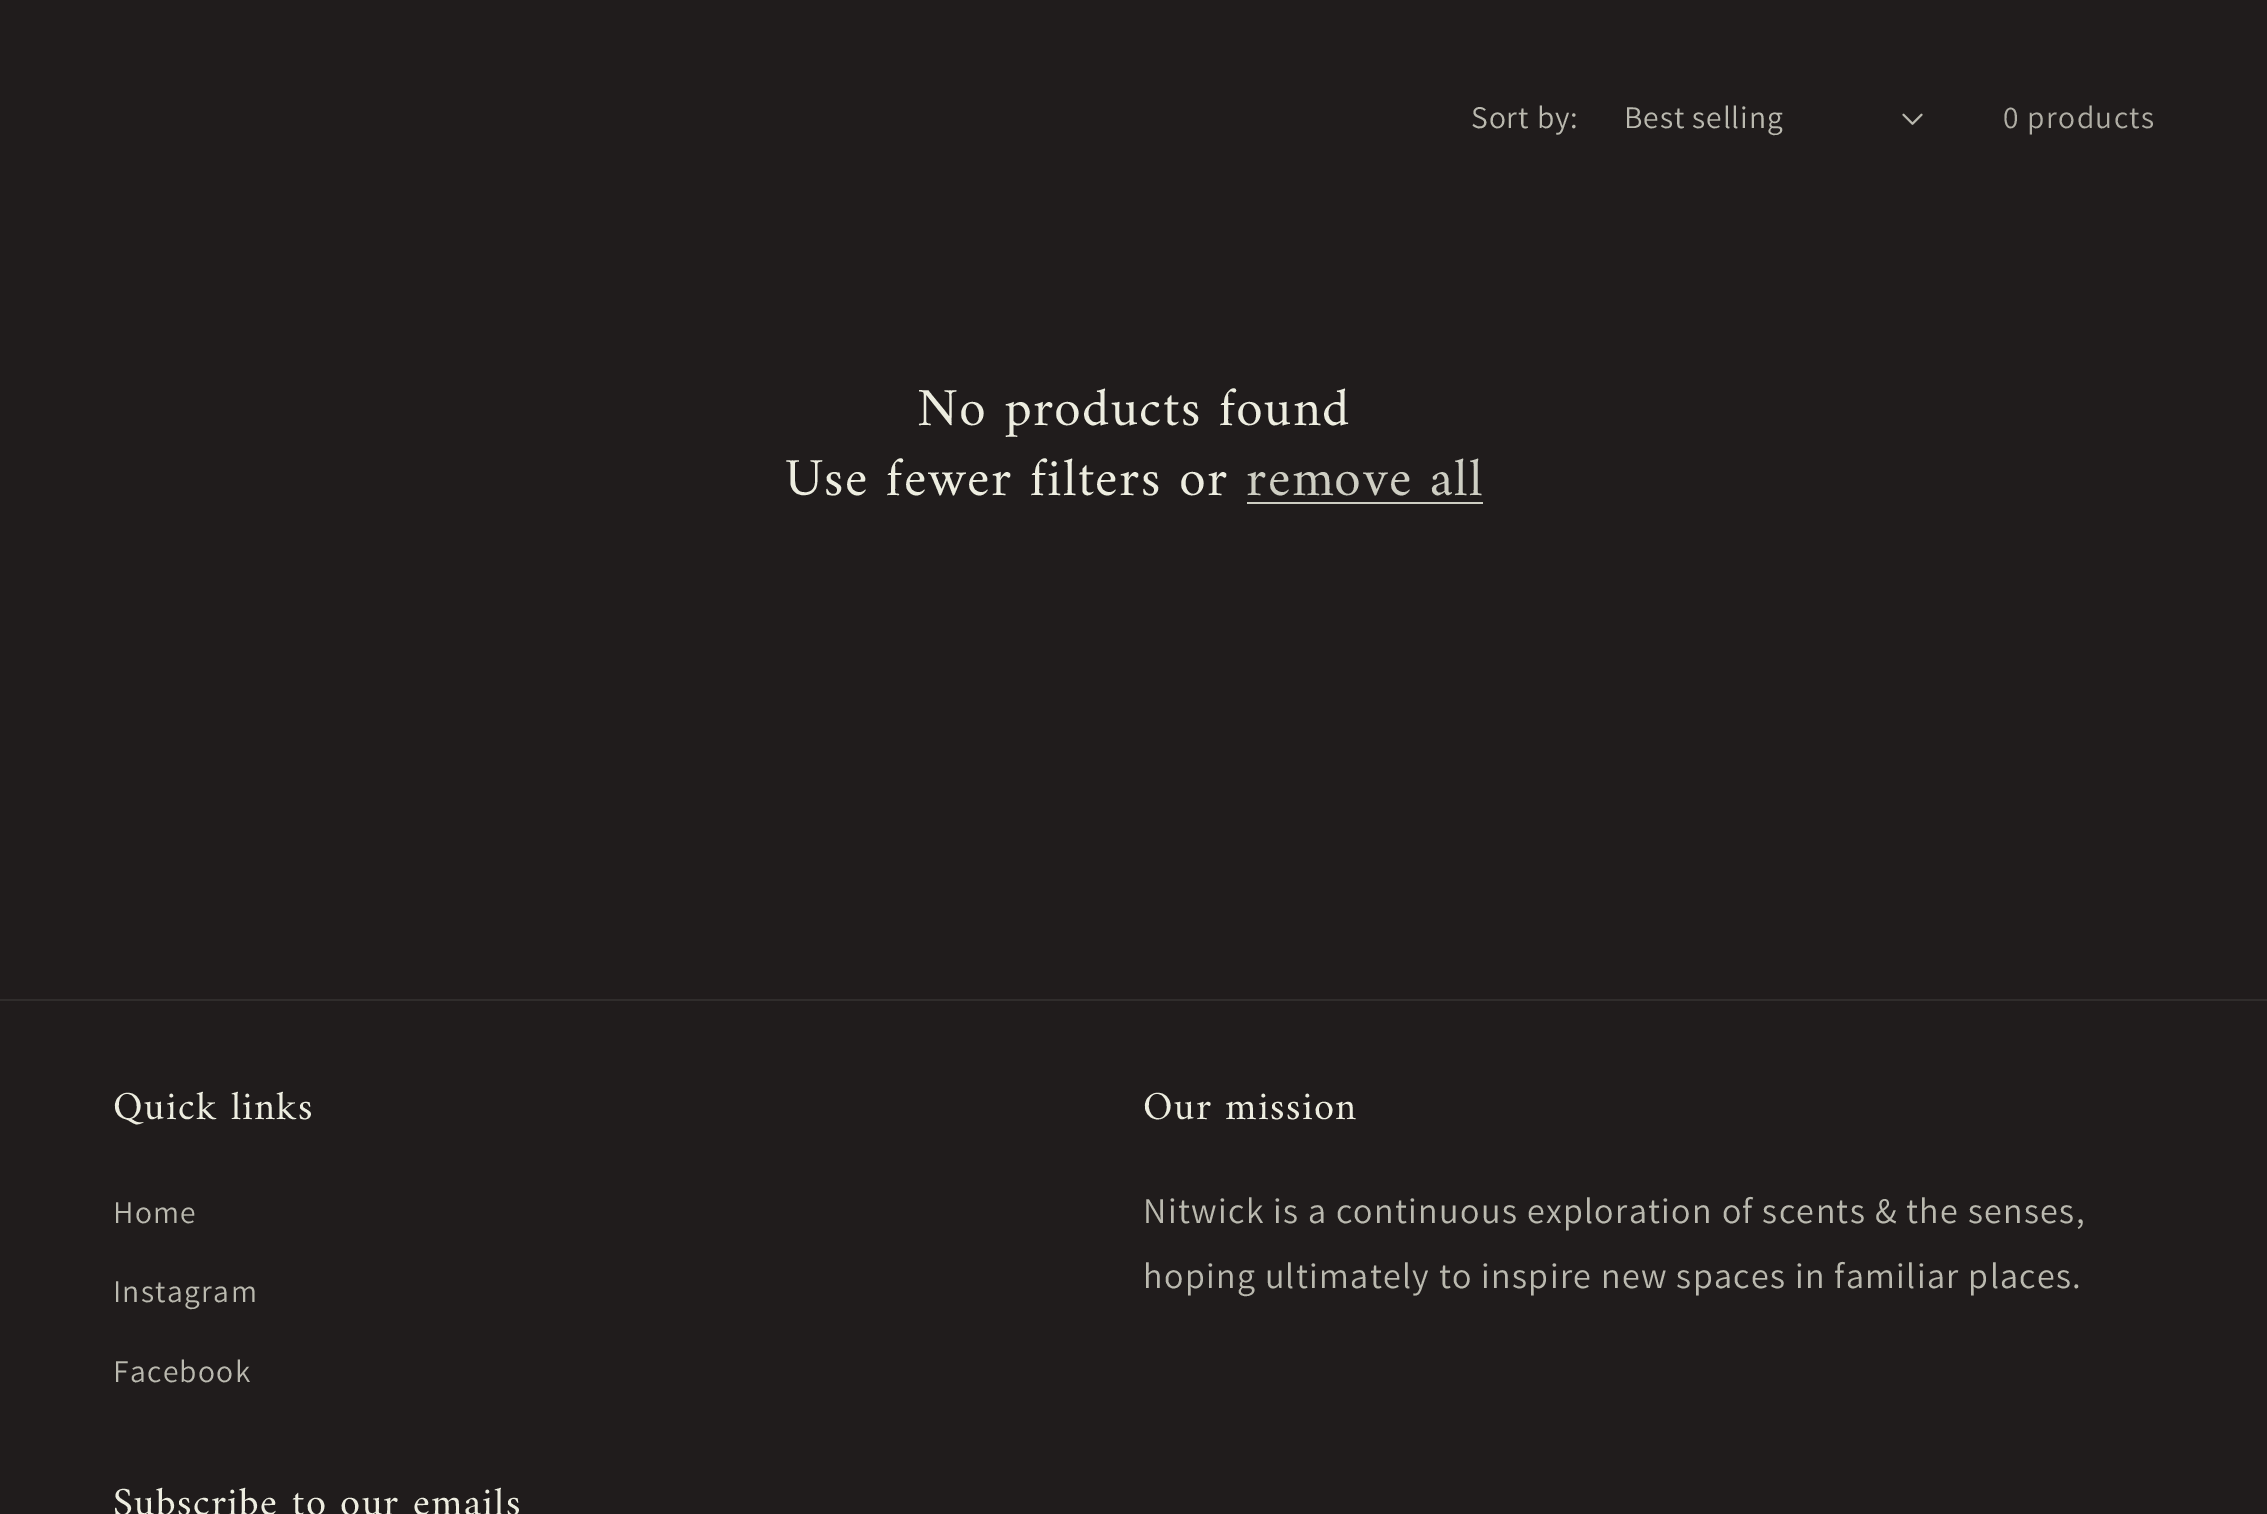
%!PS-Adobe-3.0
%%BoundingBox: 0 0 2267 1514
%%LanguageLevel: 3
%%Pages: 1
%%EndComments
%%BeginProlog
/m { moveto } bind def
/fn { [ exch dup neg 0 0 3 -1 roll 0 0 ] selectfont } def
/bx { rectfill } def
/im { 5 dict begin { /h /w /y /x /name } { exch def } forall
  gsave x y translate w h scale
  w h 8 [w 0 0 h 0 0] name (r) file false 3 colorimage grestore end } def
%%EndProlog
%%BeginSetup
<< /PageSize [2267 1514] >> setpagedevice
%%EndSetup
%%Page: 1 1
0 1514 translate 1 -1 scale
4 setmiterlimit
0.125 0.11 0.11 setrgbcolor
0 0 2267 1514 bx
/Assistant-Regular 31.5 fn
0.729 0.725 0.686 setrgbcolor
1471 128 m 0.9 0 (Sort by:) ashow
1624 128 m 0.9 0 (Best selling) ashow
(image0.raw) 1902 113 21 12 im
0.69 0.682 0.647 setrgbcolor
2003 128 m 1.35 0 (0 products) ashow
/Amiri-Regular 54 fn
0.929 0.929 0.878 setrgbcolor
917 425 m 1.35 0 (No products found) ashow
785 495 m 1.35 0 (Use fewer filters or) ashow
0.808 0.808 0.765 setrgbcolor
1246 495 m 1.35 0 (remove all) ashow
1247 502 236 2 bx
0.188 0.176 0.173 setrgbcolor
0 999 2267 2 bx
/Amiri-Regular 40.5 fn
0.929 0.929 0.878 setrgbcolor
113 1119 m 1.35 0 (Quick links) ashow
/Assistant-Regular 31.5 fn
0.729 0.725 0.686 setrgbcolor
113 1223 m 1.35 0 (Home) ashow
113 1302 m 1.35 0 (Instagram) ashow
113 1382 m 1.35 0 (Facebook) ashow
/Amiri-Regular 40.5 fn
0.929 0.929 0.878 setrgbcolor
1143 1119 m 1.35 0 (Our mission) ashow
/Assistant-Regular 36 fn
0.729 0.725 0.686 setrgbcolor
1143 1223 m 1.35 0 (Nitwick is a continuous exploration of scents & the senses,) ashow
1143 1288 m 1.35 0 (hoping ultimately to inspire new spaces in familiar places.) ashow
/Amiri-Regular 40.5 fn
0.929 0.929 0.878 setrgbcolor
113 1515 m 1.35 0 (Subscribe to our emails) ashow
showpage
%%EOF
